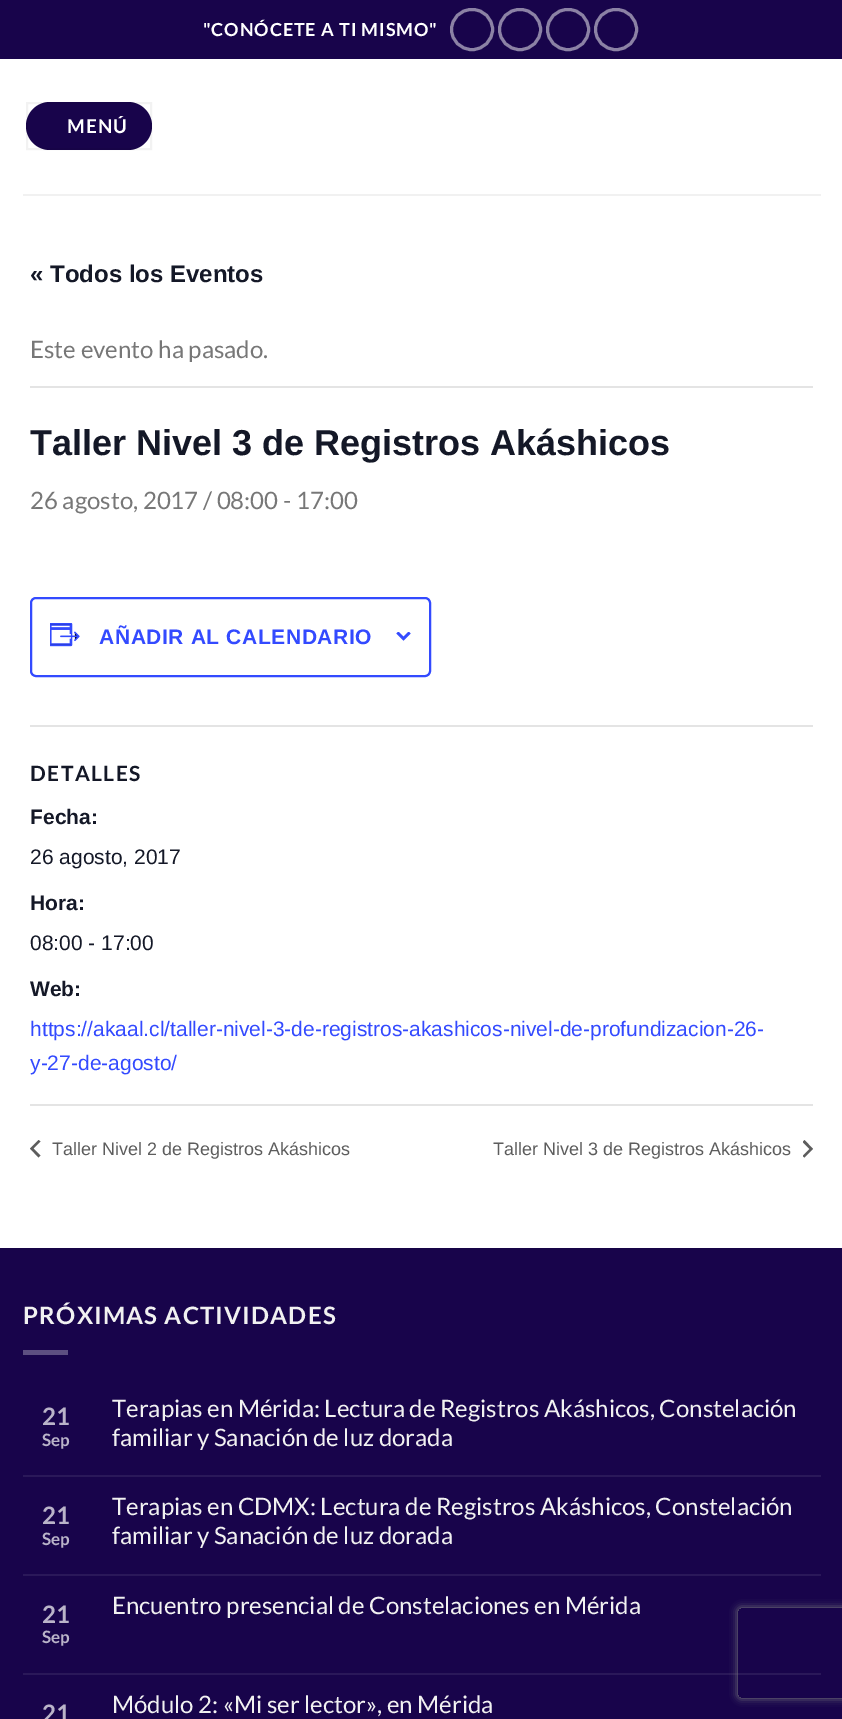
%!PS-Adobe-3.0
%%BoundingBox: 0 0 842 1719
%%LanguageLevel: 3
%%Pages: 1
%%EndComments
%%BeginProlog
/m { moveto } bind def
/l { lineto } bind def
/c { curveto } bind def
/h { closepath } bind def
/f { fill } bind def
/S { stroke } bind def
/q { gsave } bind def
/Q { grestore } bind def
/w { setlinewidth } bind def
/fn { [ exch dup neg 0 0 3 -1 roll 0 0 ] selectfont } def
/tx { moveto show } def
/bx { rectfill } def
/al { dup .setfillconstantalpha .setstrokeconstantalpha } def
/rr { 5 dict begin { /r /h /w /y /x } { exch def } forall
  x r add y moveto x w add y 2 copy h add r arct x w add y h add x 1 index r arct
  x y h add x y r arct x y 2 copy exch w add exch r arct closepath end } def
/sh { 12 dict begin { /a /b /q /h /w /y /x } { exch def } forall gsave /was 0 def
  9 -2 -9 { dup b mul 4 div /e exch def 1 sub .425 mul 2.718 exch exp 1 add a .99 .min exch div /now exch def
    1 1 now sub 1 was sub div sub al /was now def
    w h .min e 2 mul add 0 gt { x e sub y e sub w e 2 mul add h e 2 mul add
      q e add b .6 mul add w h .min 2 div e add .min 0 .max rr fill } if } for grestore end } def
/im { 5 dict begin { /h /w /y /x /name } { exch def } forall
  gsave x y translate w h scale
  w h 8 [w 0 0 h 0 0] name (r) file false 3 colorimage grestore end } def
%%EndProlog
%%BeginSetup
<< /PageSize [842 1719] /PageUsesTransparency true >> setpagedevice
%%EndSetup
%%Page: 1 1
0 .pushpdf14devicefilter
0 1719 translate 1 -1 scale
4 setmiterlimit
1 setgray
0 0 842 1719 bx
0.094 0.016 0.294 setrgbcolor
0 0 842 59 bx
/Lato-Bold 18 fn
1 setgray
203 36 m 0.9 0 ("CONÓCETE A TI MISMO") ashow
0.549 0.51 0.647 setrgbcolor
3 w
451.5 9.5 41 40 20 rr S
499.5 9.5 41 40 20 rr S
547.5 9.5 41 40 20 rr S
595.5 9.5 41 40 20 rr S
0.094 0.016 0.294 setrgbcolor
26 102 126 48 24 rr f
0.05 al
0 setgray
2 w
27 103 124 46 rectstroke
/Lato-Bold 19 fn
1 al
1 setgray
67 133 m 1 0 (MENÚ) ashow
0.945 setgray
23 194 798 2 bx
/LiberationSans-Bold 24 fn
0.078 0.094 0.153 setrgbcolor
(« Todos los Eventos) 30 282 tx
0.894 setgray
30 386 783 2 bx
/Lato-Regular 24 fn
0.467 setgray
(Este evento ha pasado.) 30 358 tx
/LiberationSans-Bold 36 fn
0.078 0.094 0.153 setrgbcolor
(Taller Nivel 3 de Registros Akáshicos) 30 455 tx
/Lato-Regular 24 fn
0.467 setgray
(26 agosto, 2017 / 08:00 - 17:00) 30 509 tx
0.2 0.29 1 setrgbcolor
31 598 399 78 5 rr S
(image0.raw) 50 623 30 24 im
/LiberationSans-Bold 21 fn
99 644 m 0.6 0 (AÑADIR AL CALENDARIO) ashow
(image1.raw) 396 632 15 9 im
0.894 setgray
30 725 783 2 bx
/Lato-Bold 21 fn
0.078 0.094 0.153 setrgbcolor
30 781 m 1.5 0 (DETALLES) ashow
/LiberationSans-Bold 21 fn
(Fecha:) 30 824 tx
/LiberationSans-Regular 21 fn
(26 agosto, 2017) 30 864 tx
/LiberationSans-Bold 21 fn
(Hora:) 30 910 tx
/LiberationSans-Regular 21 fn
(08:00 - 17:00) 30 950 tx
/LiberationSans-Bold 21 fn
(Web:) 30 996 tx
/LiberationSans-Regular 21 fn
0.2 0.29 1 setrgbcolor
(https://akaal.cl/taller-nivel-3-de-registros-akashicos-nivel-de-profundizacion-26-) 30 1036 tx
(y-27-de-agosto/) 30 1070 tx
0.894 setgray
30 1104 783 2 bx
0.365 setgray
40.5 1155.5 m 38.5 1157.5 l 30 1148.5 l 38.5 1140 l 40.5 1141.5 l 33.5 1148.5 l h f
/LiberationSans-Regular 18 fn
(Taller Nivel 2 de Registros Akáshicos) 52 1155 tx
(Taller Nivel 3 de Registros Akáshicos) 493 1155 tx
q
803 1140 10 18 rectclip
802.5 1142 m 804.5 1140 l 813 1149 l 804.5 1157.5 l 802.5 1156 l 809.5 1149 l h f
Q
0.094 0.016 0.294 setrgbcolor
0 1250 842 469 bx
0.09 0.016 0.278 setrgbcolor
0 1248 842 2 bx
/Lato-Bold 24 fn
0.945 setgray
23 1324 m 1.2 0 (PRÓXIMAS ACTIVIDADES) ashow
0.365 0.31 0.506 setrgbcolor
23 1350 45 5 bx
0.729 0.706 0.788 setrgbcolor
(21) 42 1425 tx
/Lato-Bold 17 fn
(Sep) 42 1446 tx
/Lato-Regular 24 fn
0.945 setgray
(Terapias en Mérida: Lectura de Registros Akáshicos, Constelación) 112 1417 tx
(familiar y Sanación de luz dorada) 112 1446 tx
0.165 0.094 0.349 setrgbcolor
23 1475 798 2 bx
/Lato-Bold 24 fn
0.729 0.706 0.788 setrgbcolor
(21) 42 1524 tx
/Lato-Bold 17 fn
(Sep) 42 1545 tx
/Lato-Regular 24 fn
0.945 setgray
(Terapias en CDMX: Lectura de Registros Akáshicos, Constelación) 112 1515 tx
(familiar y Sanación de luz dorada) 112 1544 tx
0.165 0.094 0.349 setrgbcolor
23 1574 798 2 bx
/Lato-Bold 24 fn
0.729 0.706 0.788 setrgbcolor
(21) 42 1623 tx
/Lato-Bold 17 fn
(Sep) 42 1643 tx
/Lato-Regular 24 fn
0.945 setgray
(Encuentro presencial de Constelaciones en Mérida) 112 1614 tx
0.165 0.094 0.349 setrgbcolor
23 1673 798 2 bx
/Lato-Bold 24 fn
0.729 0.706 0.788 setrgbcolor
(21) 42 1722 tx
/Lato-Regular 24 fn
0.945 setgray
(Módulo 2: «Mi ser lector», en Mérida) 112 1713 tx
q
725 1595 m 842 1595 l 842 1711 l 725 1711 l h 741 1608 m 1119 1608 l 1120.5 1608 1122 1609.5 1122 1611 c 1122 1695 l 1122 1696.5 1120.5 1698 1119 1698 c 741 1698 l 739.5 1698 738 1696.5 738 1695 c 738 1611 l 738 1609.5 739.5 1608 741 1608 c h eoclip newpath
0.502 setgray
738 1608 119 90 3 4 1 sh
Q
.poppdf14devicefilter showpage
%%EOF
